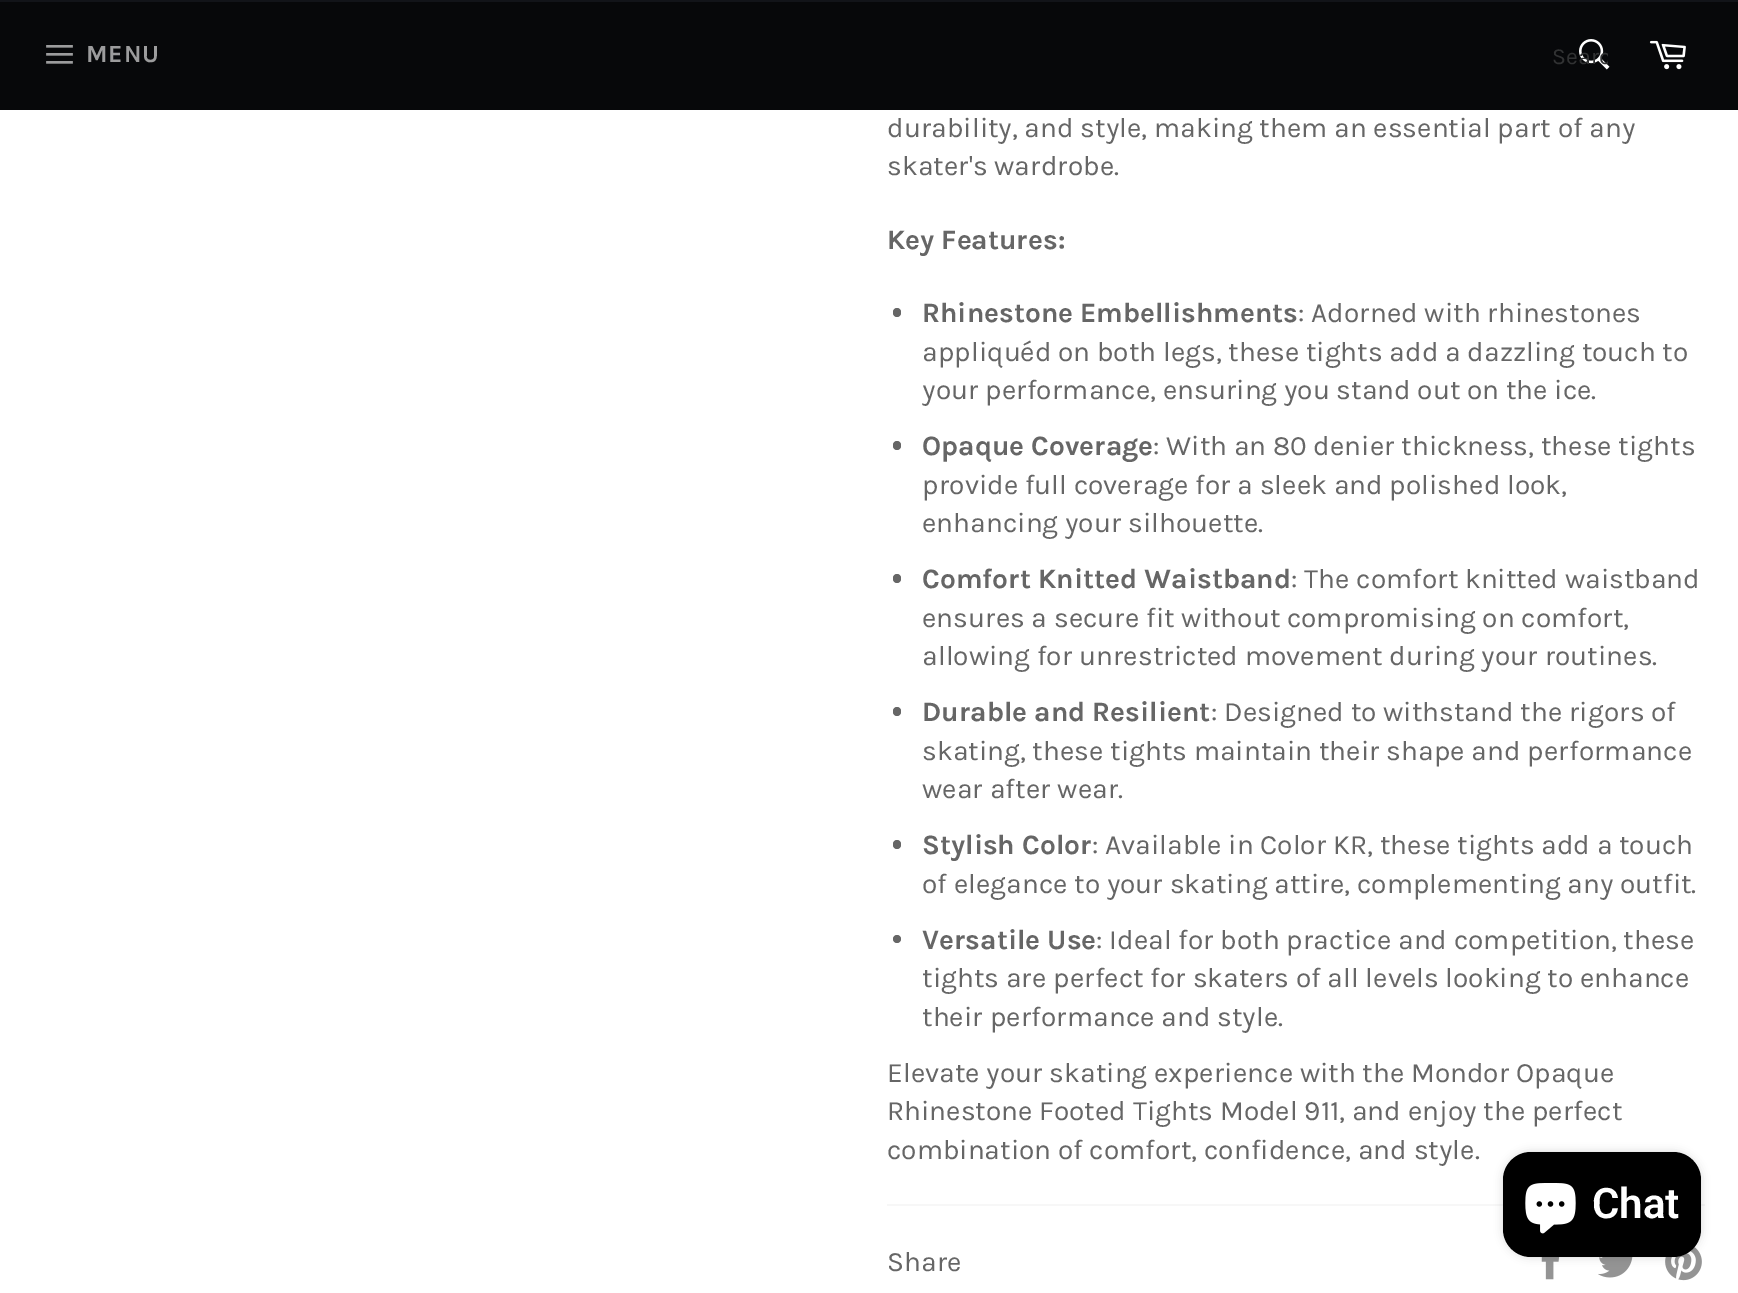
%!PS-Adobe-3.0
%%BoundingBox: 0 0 1738 1293
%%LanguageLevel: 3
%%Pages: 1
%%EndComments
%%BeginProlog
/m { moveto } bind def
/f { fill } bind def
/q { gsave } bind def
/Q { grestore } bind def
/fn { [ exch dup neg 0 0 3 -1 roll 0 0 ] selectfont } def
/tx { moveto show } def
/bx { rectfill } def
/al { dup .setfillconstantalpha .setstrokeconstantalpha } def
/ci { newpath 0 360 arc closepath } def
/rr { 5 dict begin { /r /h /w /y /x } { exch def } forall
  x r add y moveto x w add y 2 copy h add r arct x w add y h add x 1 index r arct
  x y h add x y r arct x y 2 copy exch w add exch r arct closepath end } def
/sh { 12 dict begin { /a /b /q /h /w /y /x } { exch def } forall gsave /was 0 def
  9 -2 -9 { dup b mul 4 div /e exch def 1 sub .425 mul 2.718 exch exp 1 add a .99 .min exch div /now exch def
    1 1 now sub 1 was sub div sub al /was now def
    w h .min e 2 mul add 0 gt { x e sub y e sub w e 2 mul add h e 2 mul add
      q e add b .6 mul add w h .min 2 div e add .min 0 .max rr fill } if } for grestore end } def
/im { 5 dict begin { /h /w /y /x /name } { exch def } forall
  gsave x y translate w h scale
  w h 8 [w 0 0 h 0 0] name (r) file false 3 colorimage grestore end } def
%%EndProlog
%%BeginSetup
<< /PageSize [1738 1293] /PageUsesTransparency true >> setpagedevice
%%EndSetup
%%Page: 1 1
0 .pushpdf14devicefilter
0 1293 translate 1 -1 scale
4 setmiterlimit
1 setgray
0 0 1738 1293 bx
0.027 0.031 0.039 setrgbcolor
0 2 1738 108 bx
0.071 0.078 0.098 setrgbcolor
0 0 1738 2 bx
(image0.raw) 46 45 27 19 im
/Karla-Bold 24.5 fn
0.612 0.612 0.616 setrgbcolor
86 62 m 1 0 (MENU) ashow
(image1.raw) 1579 39 31 31 im
q
1552 44 56 26 rectclip
/Karla-Regular 23 fn
0.192 0.196 0.2 setrgbcolor
(Searc) 1552 64 tx
Q
(image2.raw) 1649 40 37 30 im
/Karla-Regular 28 fn
0.4 setgray
(durability, and style, making them an essential part of any) 887 137 tx
(skater's wardrobe.) 887 175 tx
/Karla-Bold 28 fn
(Key Features:) 887 249 tx
893 308 8 9 4 rr f
(Rhinestone Embellishments) 922 322 tx
/Karla-Regular 28 fn
(: Adorned with rhinestones) 1298 322 tx
(appliquéd on both legs, these tights add a dazzling touch to) 922 361 tx
(your performance, ensuring you stand out on the ice.) 922 399 tx
893 441 8 9 4 rr f
/Karla-Bold 28 fn
(Opaque Coverage) 922 455 tx
/Karla-Regular 28 fn
(: With an 80 denier thickness, these tights) 1153 455 tx
(provide full coverage for a sleek and polished look,) 922 494 tx
(enhancing your silhouette.) 922 532 tx
893 574 8 9 4 rr f
/Karla-Bold 28 fn
(Comfort Knitted Waistband) 922 588 tx
/Karla-Regular 28 fn
(: The comfort knitted waistband) 1291 588 tx
(ensures a secure fit without compromising on comfort,) 922 627 tx
(allowing for unrestricted movement during your routines.) 922 665 tx
893 707 8 9 4 rr f
/Karla-Bold 28 fn
(Durable and Resilient) 922 721 tx
/Karla-Regular 28 fn
(: Designed to withstand the rigors of) 1211 721 tx
(skating, these tights maintain their shape and performance) 922 760 tx
(wear after wear.) 922 798 tx
893 840 8 9 4 rr f
/Karla-Bold 28 fn
(Stylish Color) 922 854 tx
/Karla-Regular 28 fn
(: Available in Color KR, these tights add a touch) 1092 854 tx
(of elegance to your skating attire, complementing any outfit.) 922 893 tx
897 939 4 ci f
/Karla-Bold 28 fn
(Versatile Use) 922 949 tx
/Karla-Regular 28 fn
(: Ideal for both practice and competition, these) 1096 949 tx
(tights are perfect for skaters of all levels looking to enhance) 922 987 tx
(their performance and style.) 922 1026 tx
(Elevate your skating experience with the Mondor Opaque) 887 1082 tx
(Rhinestone Footed Tights Model 911, and enjoy the perfect) 887 1120 tx
(combination of comfort, confidence, and style.) 887 1159 tx
0.969 setgray
887 1204 818 2 bx
0.4 setgray
(Share) 887 1271 tx
(image3.raw) 1541 1257 19 23 im
(image4.raw) 1598 1257 35 21 im
(image5.raw) 1665 1246 37 35 im
0 setgray
1503 1152 198 105 28 4.5 0.15 sh
1503 1152 198 105 28 rr f
(image6.raw) 1525 1183 51 51 im
/Roboto-SemiBold 42 fn
1 setgray
(Chat) 1592 1218 tx
.poppdf14devicefilter showpage
%%EOF
